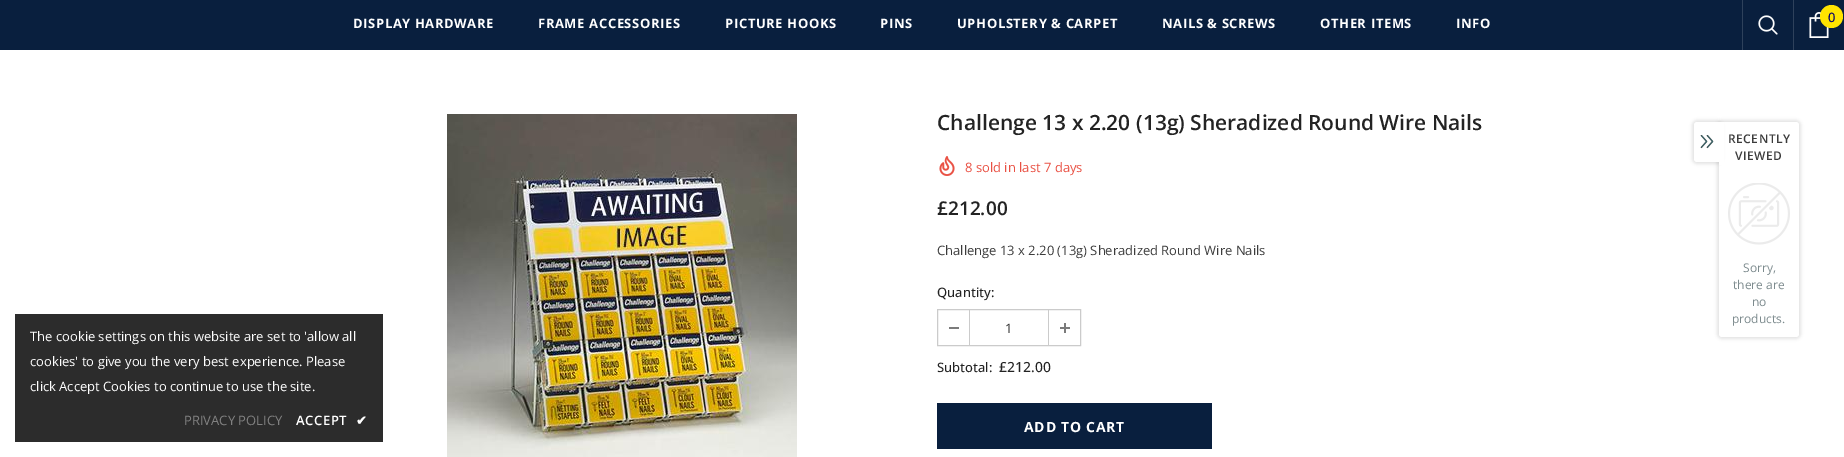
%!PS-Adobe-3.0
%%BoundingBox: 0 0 1844 457
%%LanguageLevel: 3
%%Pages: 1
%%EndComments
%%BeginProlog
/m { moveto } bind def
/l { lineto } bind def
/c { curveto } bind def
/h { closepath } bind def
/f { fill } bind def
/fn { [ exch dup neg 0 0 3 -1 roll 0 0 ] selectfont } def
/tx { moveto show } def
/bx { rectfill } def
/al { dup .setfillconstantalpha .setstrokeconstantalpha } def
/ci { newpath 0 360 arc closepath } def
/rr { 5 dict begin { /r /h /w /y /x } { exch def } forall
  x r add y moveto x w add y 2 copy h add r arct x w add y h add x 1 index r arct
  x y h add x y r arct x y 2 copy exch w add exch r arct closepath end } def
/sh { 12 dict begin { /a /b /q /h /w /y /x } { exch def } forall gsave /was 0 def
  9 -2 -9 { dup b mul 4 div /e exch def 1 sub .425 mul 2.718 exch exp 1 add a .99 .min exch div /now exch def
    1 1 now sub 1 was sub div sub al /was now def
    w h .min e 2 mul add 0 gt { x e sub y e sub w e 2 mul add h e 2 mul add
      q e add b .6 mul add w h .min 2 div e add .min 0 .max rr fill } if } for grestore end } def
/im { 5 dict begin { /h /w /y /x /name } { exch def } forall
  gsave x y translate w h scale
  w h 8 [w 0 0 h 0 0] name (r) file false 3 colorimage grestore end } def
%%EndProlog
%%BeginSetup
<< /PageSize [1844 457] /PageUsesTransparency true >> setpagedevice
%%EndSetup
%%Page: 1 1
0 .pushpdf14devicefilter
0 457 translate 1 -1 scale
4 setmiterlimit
1 setgray
0 0 1844 457 bx
0.035 0.122 0.243 setrgbcolor
0 0 1844 50 bx
/OpenSans-Bold 13 fn
1 setgray
353 28 m 0.6 0 (DISPLAY HARDWARE) ashow
538 28 m 0.6 0 (FRAME ACCESSORIES) ashow
725 28 m 0.6 0 (PICTURE HOOKS) ashow
880 28 m 0.6 0 (PINS) ashow
957 28 m 0.6 0 (UPHOLSTERY & CARPET) ashow
1162 28 m 0.6 0 (NAILS & SCREWS) ashow
1320 28 m 0.6 0 (OTHER ITEMS) ashow
1456 28 m 0.6 0 (INFO) ashow
0.18 0.255 0.357 setrgbcolor
1742 0 1 50 bx
(image0.raw) 1758 15 20 20 im
1793 0 1 50 bx
(image1.raw) 1809 12 20 26 im
1 0.894 0 setrgbcolor
1831.5 16.5 11.5 ci f
/OpenSans-Medium 13 fn
0.039 0.02 0.408 setrgbcolor
(0) 1828 22 tx
0.173 setgray
15 314 368 128 bx
/OpenSans-Regular 13 fn
1 setgray
(The cookie settings on this website are set to 'allow all) 30 341 tx
(cookies' to give you the very best experience. Please) 30 366 tx
(click Accept Cookies to continue to use the site.) 30 391 tx
0.506 setgray
(PRIVACY POLICY) 184 425 tx
/OpenSans-SemiBold 13 fn
1 setgray
296 425 m 0.6 0 (ACCEPT) ashow
/DejaVuSans-Bold 13 fn
356 425 m 0.6 0 (✔) ashow
(image2.raw) 447 114 350 343 im
/OpenSans-SemiBold 21 fn
0.137 setgray
(Challenge 13 x 2.20 \(13g\) Sheradized Round Wire Nails) 937 130 tx
(image3.raw) 939 156 16 20 im
/OpenSans-Regular 13 fn
0.914 0.318 0.267 setrgbcolor
(8 sold in last 7 days) 965 172 tx
/OpenSans-SemiBold 19 fn
0.137 setgray
(£212.00) 937 215 tx
/OpenSans-Regular 13 fn
0.235 setgray
(Challenge 13 x 2.20 \(13g\) Sheradized Round Wire Nails) 937 255 tx
/OpenSans-Medium 13 fn
0.137 setgray
(Quantity:) 937 297 tx
0.796 setgray
937.5 309.5 143 36 rectstroke
969 310 1 35 bx
0.482 setgray
949 327 10 2 bx
/OpenSans-Regular 13 fn
0.176 setgray
(1) 1005 333 tx
0.796 setgray
1048 310 1 35 bx
0.482 setgray
1060 327 10 2 bx
1064 323 2 10 bx
/OpenSans-Medium 13 fn
0.137 setgray
(Subtotal:) 937 372 tx
/OpenSans-Medium 14 fn
(£212.00) 999 372 tx
0.035 0.122 0.243 setrgbcolor
937 403 275 46 bx
/OpenSans-Bold 14 fn
1 setgray
1024 432 m 0.75 0 (ADD TO CART) ashow
0 setgray
1717 120 84 219 5 1.5 0.1 sh
1 setgray
1719 122 m 1796 122 l 1797.5 122 1799 123.5 1799 125 c 1799 334 l 1799 335.5 1797.5 337 1796 337 c 1722 337 l 1720.5 337 1719 335.5 1719 334 c h f
0 setgray
1692 120 30 44 5 1.5 0.1 sh
1 setgray
1697 122 m 1720 122 l 1720 162 l 1697 162 l 1695.5 162 1694 160.5 1694 159 c 1694 125 l 1694 123.5 1695.5 122 1697 122 c h f
(image4.raw) 1700 135 14 14 im
1719 122 5 43 bx
/OpenSans-SemiBold 12 fn
0.235 setgray
1728 143 m 0.5 0 (RECENTLY) ashow
1735 160 m 0.5 0 (VIEWED) ashow
(image5.raw) 1728 183 62 62 im
/OpenSans-Regular 12 fn
0.49 0.545 0.557 setrgbcolor
(Sorry,) 1743 272 tx
(there are) 1733 289 tx
(no) 1752 306 tx
(products.) 1732 323 tx
.poppdf14devicefilter showpage
%%EOF
